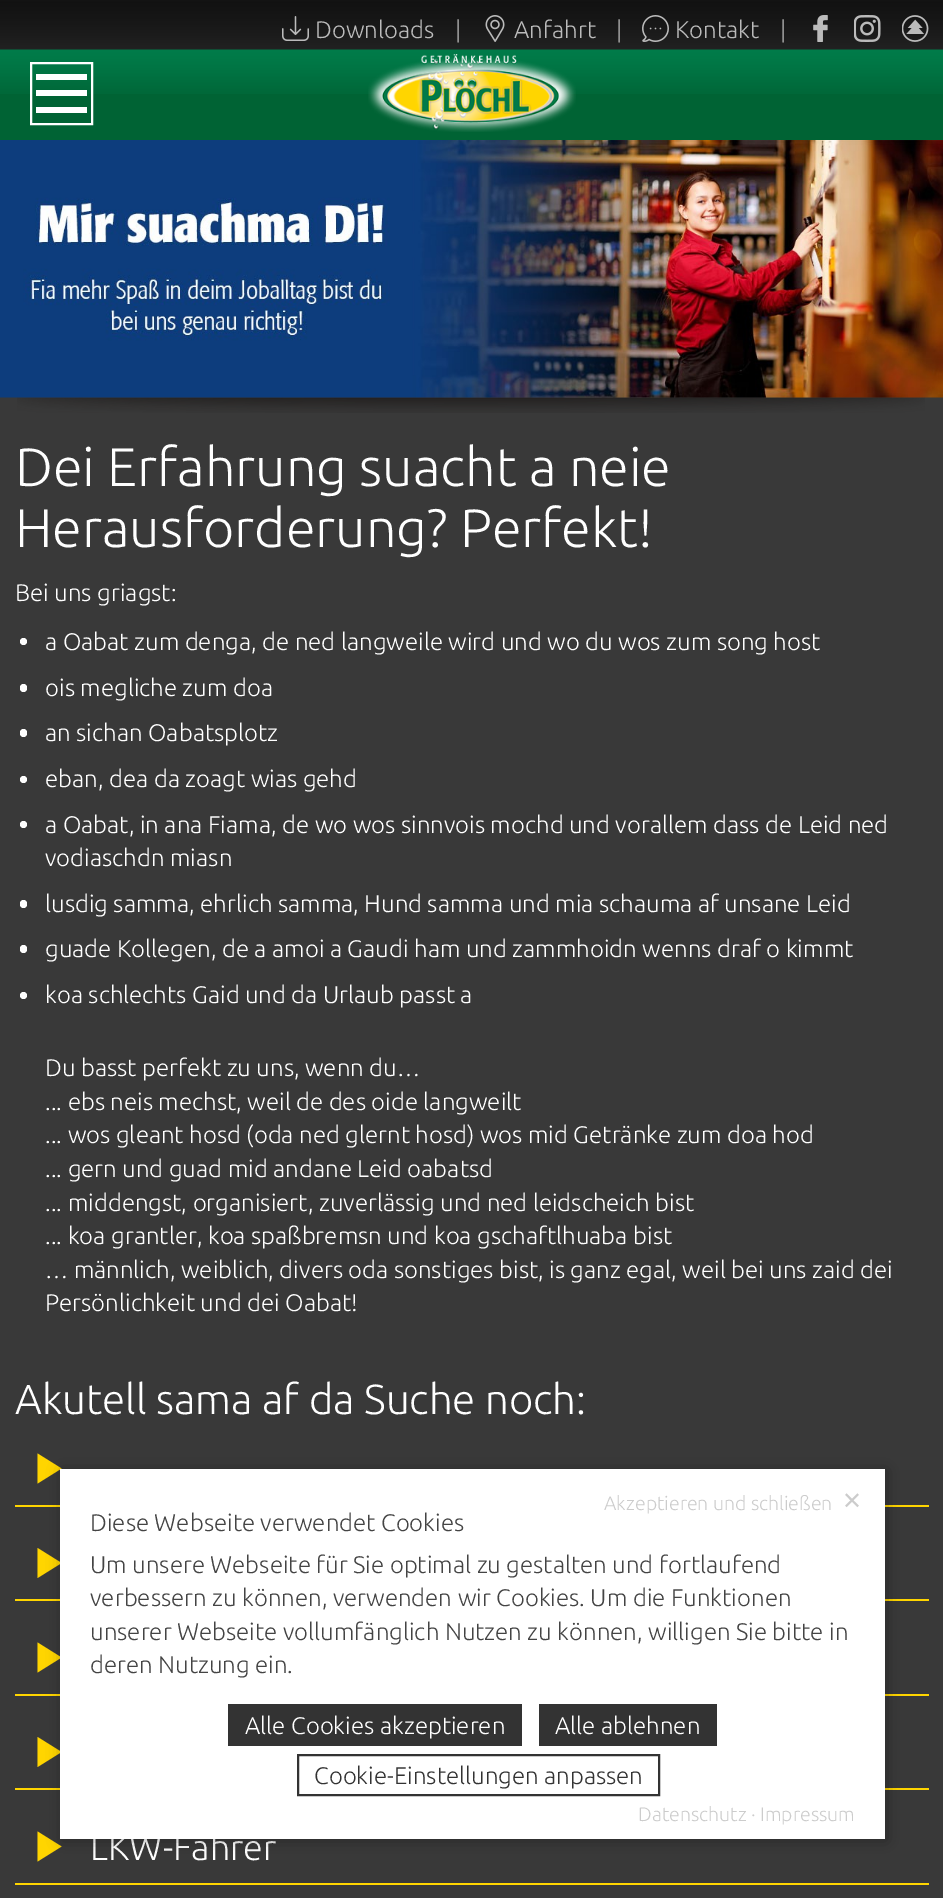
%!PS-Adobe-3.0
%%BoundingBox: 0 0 943 1898
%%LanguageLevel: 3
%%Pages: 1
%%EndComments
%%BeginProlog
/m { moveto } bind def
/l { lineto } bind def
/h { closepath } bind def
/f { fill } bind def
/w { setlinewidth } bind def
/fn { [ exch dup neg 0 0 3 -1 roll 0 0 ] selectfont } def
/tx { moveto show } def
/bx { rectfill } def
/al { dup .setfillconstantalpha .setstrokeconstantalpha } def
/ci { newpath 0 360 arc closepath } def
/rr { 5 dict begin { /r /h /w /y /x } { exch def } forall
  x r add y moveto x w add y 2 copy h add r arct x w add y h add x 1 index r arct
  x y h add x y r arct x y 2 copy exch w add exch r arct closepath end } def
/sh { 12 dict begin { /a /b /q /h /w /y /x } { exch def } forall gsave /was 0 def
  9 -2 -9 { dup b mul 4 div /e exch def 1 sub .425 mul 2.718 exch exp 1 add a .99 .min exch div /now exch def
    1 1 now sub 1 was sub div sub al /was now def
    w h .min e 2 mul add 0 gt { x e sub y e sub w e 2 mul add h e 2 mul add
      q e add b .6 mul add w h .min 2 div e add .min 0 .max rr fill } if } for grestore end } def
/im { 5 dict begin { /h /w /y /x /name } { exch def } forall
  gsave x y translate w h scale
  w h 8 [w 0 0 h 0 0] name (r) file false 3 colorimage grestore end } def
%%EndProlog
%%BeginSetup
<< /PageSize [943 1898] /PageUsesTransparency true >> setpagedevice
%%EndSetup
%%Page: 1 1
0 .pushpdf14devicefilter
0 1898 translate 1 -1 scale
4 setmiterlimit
0.224 setgray
0 0 943 1898 bx
(image0.raw) 0 0 943 50 im
(image1.raw) 282 16 27 25 im
/Ubuntu-Light 24 fn
0.733 setgray
(Downloads) 315 38 tx
(|) 455 38 tx
(image2.raw) 485 15 20 27 im
(Anfahrt) 514 38 tx
(|) 616 38 tx
(image3.raw) 642 15 27 27 im
(Kontakt) 675 38 tx
(|) 780 38 tx
(image4.raw) 813 15 15 27 im
(image5.raw) 854 15 27 27 im
(image6.raw) 902 15 27 27 im
0 0.388 0.204 setrgbcolor
0 94 943 46 bx
(image7.raw) 0 49 943 45 im
1 setgray
2 w
31 63 61 61 rectstroke
36 74 51 6 bx
36 90 51 6 bx
36 107 51 6 bx
(image8.raw) 368 54 208 78 im
(image10.raw) 17 397 908 16 im
(image9.raw) 0 140 943 258 im
/Ubuntu-Light 54 fn
(Dei Erfahrung suacht a neie) 15 486 tx
(Herausforderung? Perfekt!) 15 547 tx
/Ubuntu-Light 24 fn
(Bei uns griagst:) 15 601 tx
23.5 641.5 3.5 ci f
(a Oabat zum denga, de ned langweile wird und wo du wos zum song host) 45 650 tx
20 684 7 8 3.5 rr f
(ois megliche zum doa) 45 696 tx
20 729 7 8 3.5 rr f
(an sichan Oabatsplotz) 45 741 tx
23.5 779.5 3.5 ci f
(eban, dea da zoagt wias gehd) 45 787 tx
23.5 824.5 3.5 ci f
(a Oabat, in ana Fiama, de wo wos sinnvois mochd und vorallem dass de Leid ned) 45 833 tx
(vodiaschdn miasn) 45 866 tx
20 900 7 8 3.5 rr f
(lusdig samma, ehrlich samma, Hund samma und mia schauma af unsane Leid) 45 912 tx
20 945 7 8 3.5 rr f
(guade Kollegen, de a amoi a Gaudi ham und zammhoidn wenns draf o kimmt) 45 957 tx
23.5 995.5 3.5 ci f
(koa schlechts Gaid und da Urlaub passt a) 45 1003 tx
(Du basst perfekt zu uns, wenn du…) 45 1076 tx
(... ebs neis mechst, weil de des oide langweilt) 45 1110 tx
(... wos gleant hosd \(oda ned glernt hosd\) wos mid Getränke zum doa hod) 45 1143 tx
(... gern und guad mid andane Leid oabatsd) 45 1177 tx
(... middengst, organisiert, zuverlässig und ned leidscheich bist) 45 1211 tx
(... koa grantler, koa spaßbremsn und koa gschaftlhuaba bist) 45 1244 tx
(… männlich, weiblich, divers oda sonstiges bist, is ganz egal, weil bei uns zaid dei) 45 1278 tx
(Persönlichkeit und dei Oabat!) 45 1311 tx
/Ubuntu-Light 42 fn
(Akutell sama af da Suche noch:) 15 1414 tx
1 0.835 0 setrgbcolor
15 1505 914 2 bx
37.5 1483.5 m 37.5 1453.5 l 61.5 1468.5 l h f
15 1599 914 2 bx
37.5 1578 m 37.5 1548 l 61.5 1563 l h f
15 1694 914 2 bx
37.5 1672.5 m 37.5 1642.5 l 61.5 1657.5 l h f
15 1788 914 2 bx
37.5 1767 m 37.5 1737 l 61.5 1752 l h f
15 1883 914 2 bx
37.5 1861.5 m 37.5 1831.5 l 61.5 1846.5 l h f
/Ubuntu-Light 36 fn
1 setgray
(LKW-Fahrer) 90 1860 tx
0 setgray
62 1470 825 371 0 7.5 0.3 sh
1 setgray
60 1469 825 370 bx
/Ubuntu-Light 19.5 fn
0.8 setgray
(Akzeptieren und schließen) 604 1510 tx
/DejaVuSans-Regular 24 fn
(✕) 842 1509 tx
/Ubuntu-Light 24 fn
0.267 setgray
(Diese Webseite verwendet Cookies) 90 1531 tx
(Um unsere Webseite für Sie optimal zu gestalten und fortlaufend) 90 1573 tx
(verbessern zu können, verwenden wir Cookies. Um die Funktionen) 90 1606 tx
(unserer Webseite vollumfänglich Nutzen zu können, willigen Sie bitte in) 90 1640 tx
(deren Nutzung ein.) 90 1673 tx
0.2 setgray
228 1704 294 42 bx
1 setgray
(Alle Cookies akzeptieren) 245 1734 tx
0.2 setgray
539 1704 178 42 bx
1 setgray
(Alle ablehnen) 555 1734 tx
0.2 setgray
298 1755 361 40 rectstroke
(Cookie-Einstellungen anpassen) 314 1784 tx
/Ubuntu-Light 19.5 fn
0.8 setgray
(Datenschutz · Impressum) 638 1821 tx
.poppdf14devicefilter showpage
%%EOF
